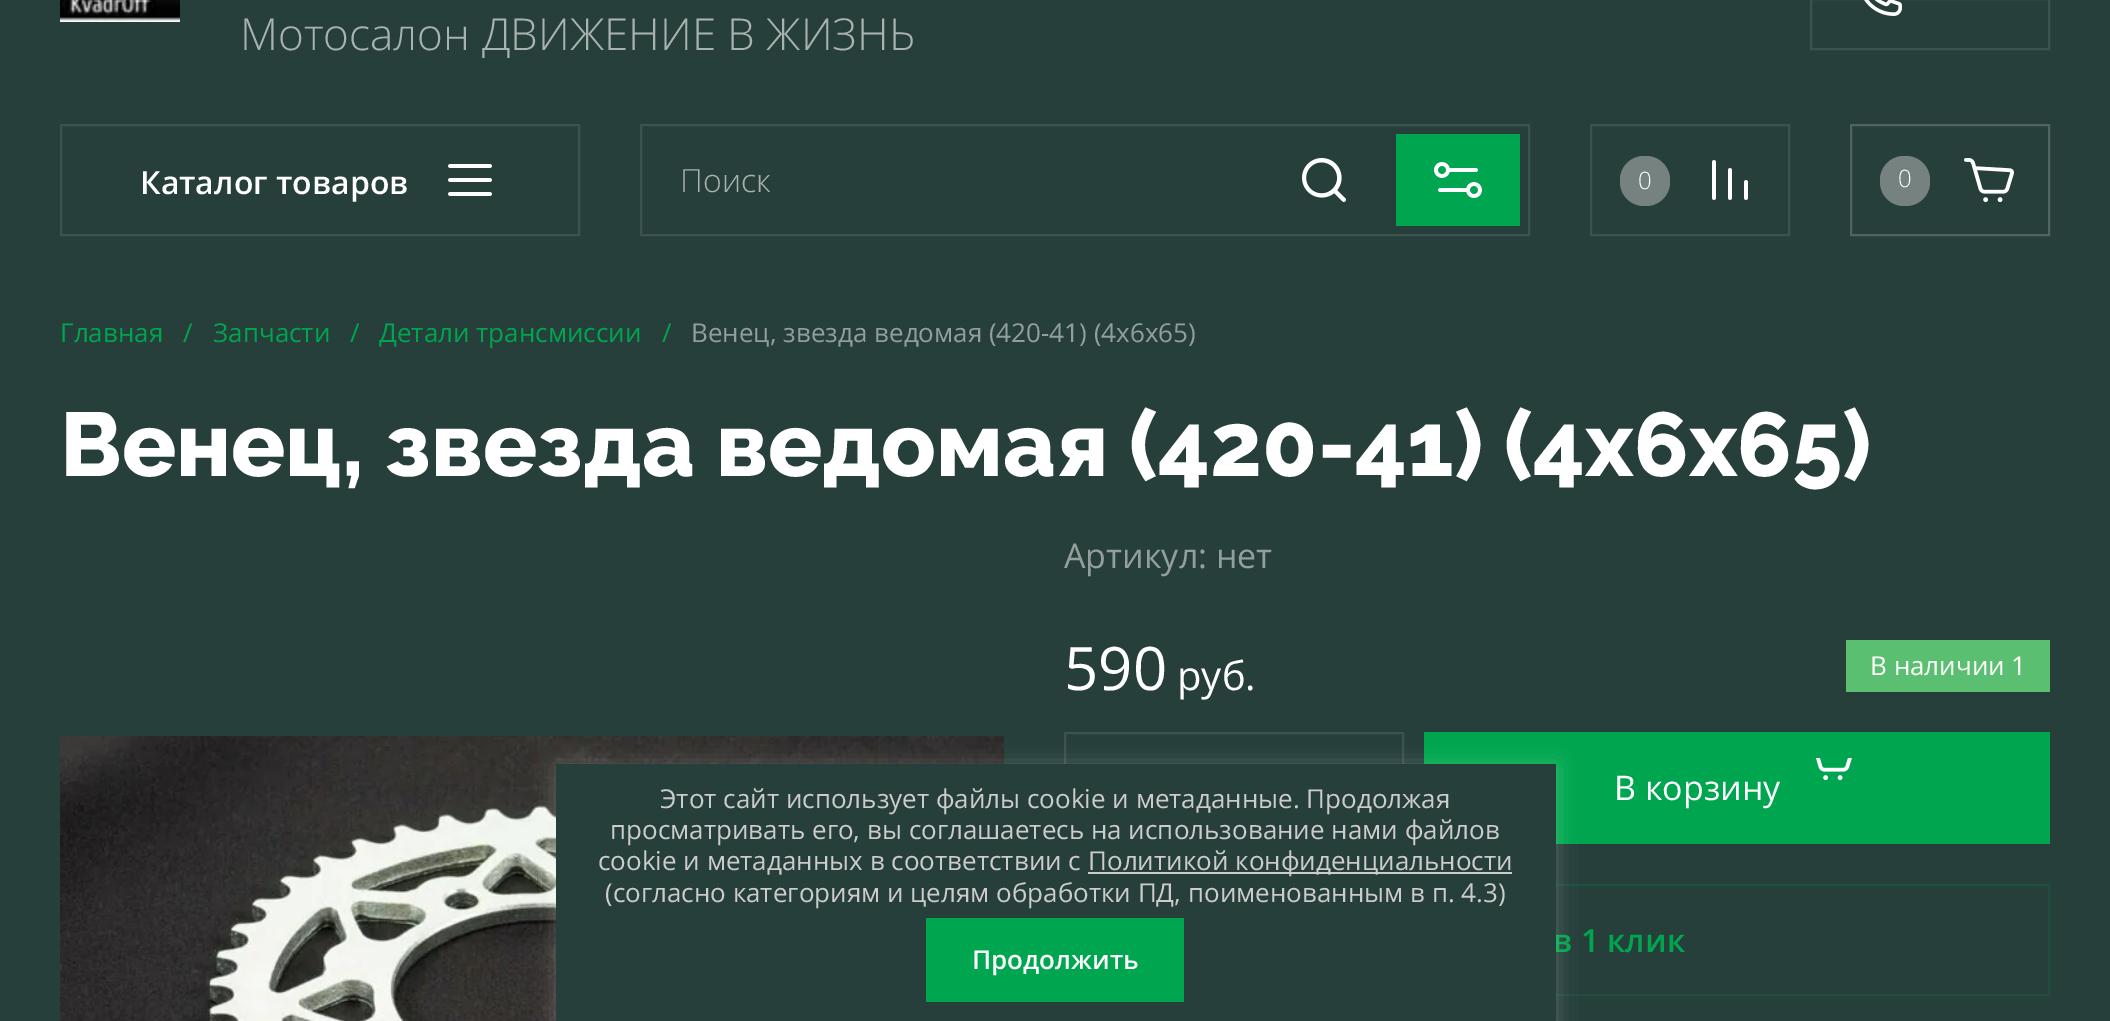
%!PS-Adobe-3.0
%%BoundingBox: 0 0 2110 1021
%%LanguageLevel: 3
%%Pages: 1
%%EndComments
%%BeginProlog
/f { fill } bind def
/w { setlinewidth } bind def
/fn { [ exch dup neg 0 0 3 -1 roll 0 0 ] selectfont } def
/tx { moveto show } def
/bx { rectfill } def
/al { dup .setfillconstantalpha .setstrokeconstantalpha } def
/rr { 5 dict begin { /r /h /w /y /x } { exch def } forall
  x r add y moveto x w add y 2 copy h add r arct x w add y h add x 1 index r arct
  x y h add x y r arct x y 2 copy exch w add exch r arct closepath end } def
/sh { 12 dict begin { /a /b /q /h /w /y /x } { exch def } forall gsave /was 0 def
  9 -2 -9 { dup b mul 4 div /e exch def 1 sub .425 mul 2.718 exch exp 1 add a .99 .min exch div /now exch def
    1 1 now sub 1 was sub div sub al /was now def
    w h .min e 2 mul add 0 gt { x e sub y e sub w e 2 mul add h e 2 mul add
      q e add b .6 mul add w h .min 2 div e add .min 0 .max rr fill } if } for grestore end } def
/im { 5 dict begin { /h /w /y /x /name } { exch def } forall
  gsave x y translate w h scale
  w h 8 [w 0 0 h 0 0] name (r) file false 3 colorimage grestore end } def
%%EndProlog
%%BeginSetup
<< /PageSize [2110 1021] /PageUsesTransparency true >> setpagedevice
%%EndSetup
%%Page: 1 1
0 .pushpdf14devicefilter
0 1021 translate 1 -1 scale
4 setmiterlimit
0.149 0.247 0.227 setrgbcolor
0 0 2110 1021 bx
(image0.raw) 60 0 120 22 im
/OpenSans-Light 44 fn
0.659 0.698 0.69 setrgbcolor
(Мотосалон ДВИЖЕНИЕ В ЖИЗНЬ) 240 50 tx
0.235 0.322 0.306 setrgbcolor
2 w
1811 -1 238 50 rectstroke
(image1.raw) 1864 0 38 16 im
61 125 518 110 rectstroke
/OpenSans-SemiBold 32 fn
1 setgray
(Каталог товаров) 140 194 tx
(image2.raw) 448 164 44 32 im
0.235 0.322 0.306 setrgbcolor
641 125 888 110 rectstroke
/OpenSans-Light 32 fn
0.659 0.698 0.69 setrgbcolor
(Поиск) 680 192 tx
(image3.raw) 1302 158 44 44 im
0 0.647 0.314 setrgbcolor
1396 134 124 92 bx
(image4.raw) 1434 162 48 36 im
0.235 0.322 0.306 setrgbcolor
1591 125 198 110 rectstroke
0.459 0.51 0.498 setrgbcolor
1620 156 50 50 24 rr f
/OpenSans-Light 24 fn
1 setgray
(0) 1638 189 tx
(image5.raw) 1712 160 36 40 im
(image6.raw) 1964 158 50 45 im
0.314 0.388 0.376 setrgbcolor
1851 125 198 110 rectstroke
0.459 0.51 0.498 setrgbcolor
1880 156 50 50 24 rr f
1 setgray
(0) 1898 187 tx
/OpenSans-Regular 26 fn
0 0.647 0.314 setrgbcolor
(Главная) 60 342 tx
(/) 183 342 tx
(Запчасти) 213 342 tx
(/) 350 342 tx
(Детали трансмиссии) 379 342 tx
(/) 662 342 tx
0.576 0.624 0.616 setrgbcolor
(Венец, звезда ведомая \(420-41\) \(4х6х65\)) 691 342 tx
/Raleway-ExtraBold 90 fn
1 setgray
(Венец, звезда ведомая \(420-41\) \(4х6х65\)) 60 476 tx
(image7.raw) 60 736 944 285 im
/OpenSans-Regular 34 fn
0.576 0.624 0.616 setrgbcolor
(Артикул: нет) 1064 568 tx
/OpenSans-Regular 60 fn
1 setgray
(590) 1064 690 tx
/OpenSans-Regular 40 fn
(руб.) 1177 690 tx
0.353 0.749 0.439 setrgbcolor
1846 640 204 52 bx
/OpenSans-Regular 26 fn
1 setgray
(В наличии 1) 1870 675 tx
0.235 0.322 0.306 setrgbcolor
1065 733 338 110 rectstroke
0 0.647 0.314 setrgbcolor
1424 732 626 112 bx
(image8.raw) 1816 758 36 23 im
/OpenSans-Regular 34 fn
1 setgray
(В корзину) 1614 800 tx
0.125 0.306 0.239 setrgbcolor
1065 885 984 110 rectstroke
/OpenSans-SemiBold 32 fn
0 0.647 0.314 setrgbcolor
(в 1 клик) 1553 952 tx
1 setgray
556 766 1000 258 0 10 0.23 sh
0.149 0.247 0.227 setrgbcolor
556 764 1000 257 bx
/OpenSans-Regular 26 fn
0.8 setgray
(Этот сайт использует файлы cookie и метаданные. Продолжая) 660 808 tx
(просматривать его, вы соглашаетесь на использование нами файлов) 610 839 tx
(cookie и метаданных в соответствии с) 598 870 tx
1088 872 424 2 bx
(Политикой конфиденциальности) 1088 870 tx
(\(согласно категориям и целям обработки ПД, поименованным в п. 4.3\)) 605 902 tx
0 0.647 0.314 setrgbcolor
926 918 258 84 bx
/OpenSans-SemiBold 26 fn
1 setgray
(Продолжить) 972 969 tx
.poppdf14devicefilter showpage
%%EOF
